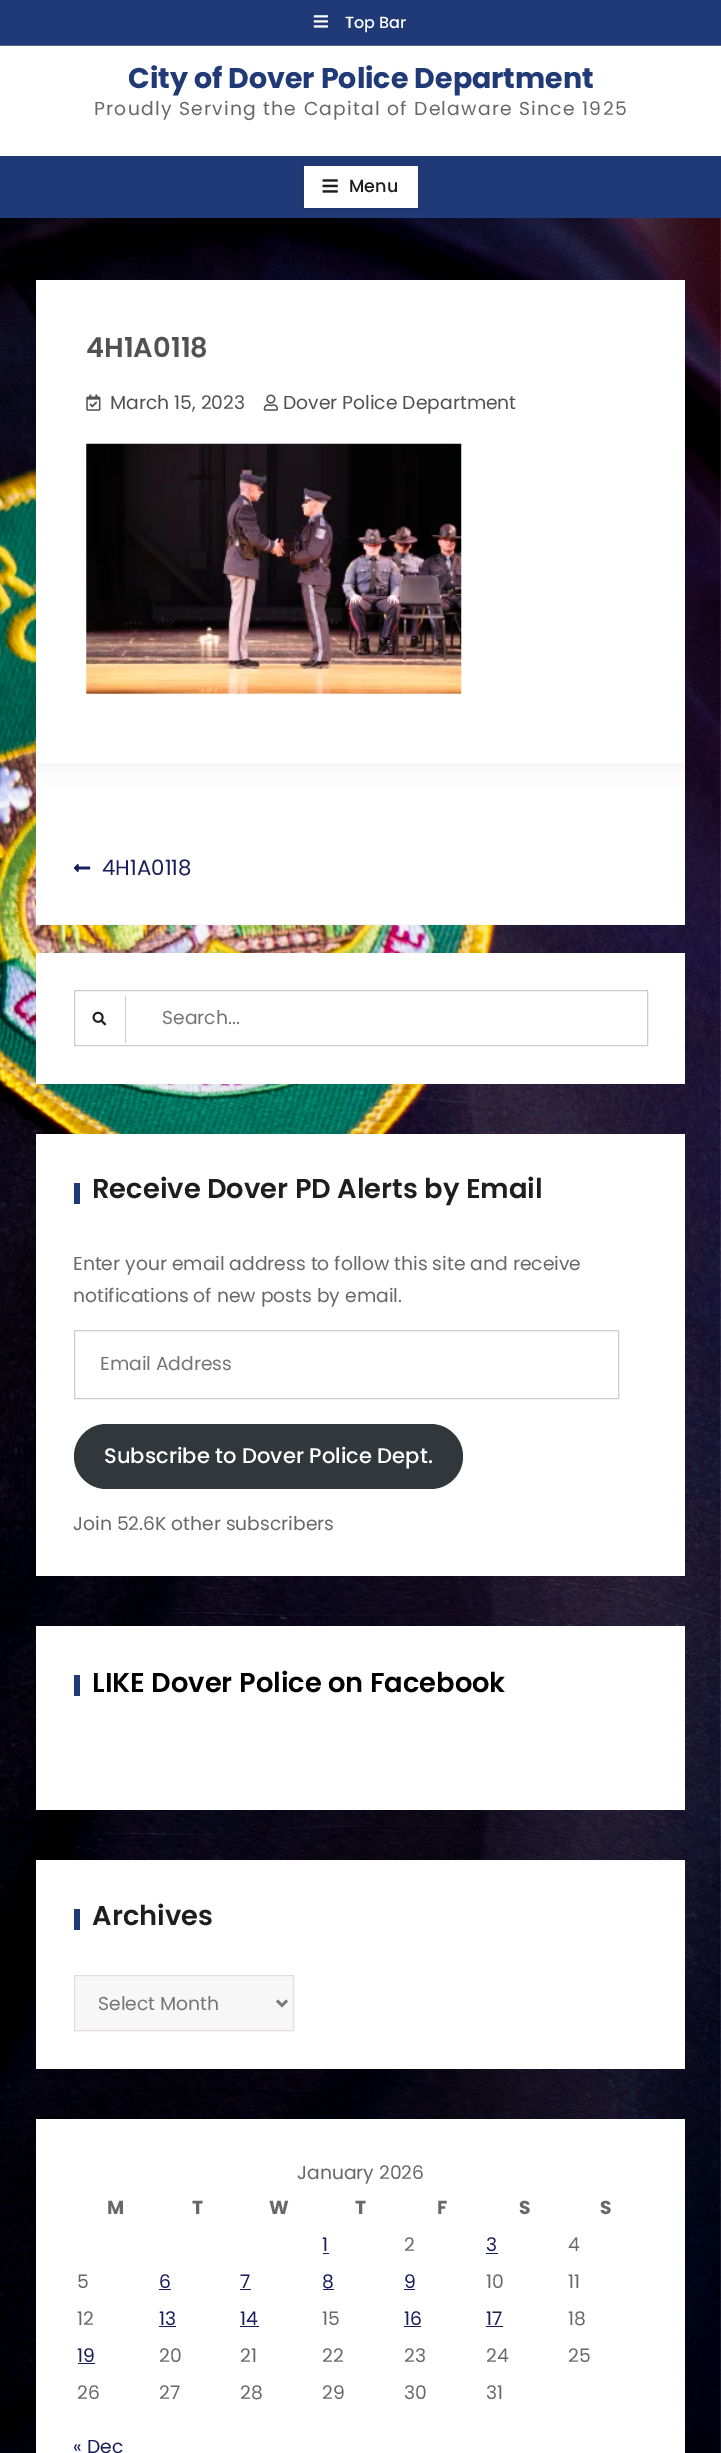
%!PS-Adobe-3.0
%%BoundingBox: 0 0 721 2453
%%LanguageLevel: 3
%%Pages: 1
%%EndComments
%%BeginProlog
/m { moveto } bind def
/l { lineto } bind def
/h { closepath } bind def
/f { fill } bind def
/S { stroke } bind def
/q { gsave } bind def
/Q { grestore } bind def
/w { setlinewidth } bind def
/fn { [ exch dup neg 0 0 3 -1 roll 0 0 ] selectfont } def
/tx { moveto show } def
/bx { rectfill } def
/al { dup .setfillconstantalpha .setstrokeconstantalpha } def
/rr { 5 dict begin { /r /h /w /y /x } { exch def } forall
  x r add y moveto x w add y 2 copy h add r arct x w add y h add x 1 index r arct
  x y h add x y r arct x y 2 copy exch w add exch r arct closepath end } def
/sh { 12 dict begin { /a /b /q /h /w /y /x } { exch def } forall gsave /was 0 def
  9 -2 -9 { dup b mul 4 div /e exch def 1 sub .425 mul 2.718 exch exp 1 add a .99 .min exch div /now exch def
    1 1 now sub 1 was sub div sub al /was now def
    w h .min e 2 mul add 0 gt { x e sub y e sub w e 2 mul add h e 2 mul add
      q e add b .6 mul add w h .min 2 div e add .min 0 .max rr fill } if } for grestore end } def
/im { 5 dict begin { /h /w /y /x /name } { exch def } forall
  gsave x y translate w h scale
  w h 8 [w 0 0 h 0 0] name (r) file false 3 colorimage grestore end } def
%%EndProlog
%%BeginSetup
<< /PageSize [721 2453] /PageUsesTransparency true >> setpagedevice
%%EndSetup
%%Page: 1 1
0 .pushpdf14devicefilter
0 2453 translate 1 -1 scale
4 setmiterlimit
1 setgray
0 0 721 2453 bx
(image0.raw) 0 218 721 2235 im
0.125 0.224 0.467 setrgbcolor
0 0 721 45 bx
0.341 0.412 0.584 setrgbcolor
0 45 721 1 bx
(image1.raw) 313 15 15 13 im
/Poppins-Medium 16 fn
1 setgray
(Top Bar) 345 28 tx
/Poppins-Bold 28.5 fn
0.125 0.224 0.467 setrgbcolor
(City of Dover Police Department) 128 88 tx
/Poppins-Regular 18.75 fn
0.408 setgray
94 115 m 1.25 0 (Proudly Serving the Capital of Delaware Since 1925) ashow
0.125 0.224 0.467 setrgbcolor
0 156 721 62 bx
0.133 setgray
304 166 114 42 0 5.5 0.14 sh
1 setgray
304 166 114 42 bx
(image2.raw) 322 179 16 14 im
/Poppins-Medium 17.5 fn
0.122 0.114 0.114 setrgbcolor
(Menu) 349 192 tx
1 setgray
36 763 649 161 bx
0.122 0.114 0.114 setrgbcolor
36 280 649 483 0 12.5 0.07 sh
1 setgray
36 280 649 483 bx
/Poppins-SemiBold 27.3 fn
0.318 setgray
(4H1A0118) 86 357 tx
(image3.raw) 86 394 15 17 im
/Poppins-Regular 18.75 fn
(March 15, 2023) 110 409 tx
(image4.raw) 263 394 15 17 im
(Dover Police Department) 283 409 tx
(image5.raw) 86 443 376 251 im
0.122 0.114 0.114 setrgbcolor
36 953 649 131 0 12.5 0.07 sh
0.969 setgray
36 924 649 1 bx
(image6.raw) 73 864 18 8 im
/Poppins-Regular 21.25 fn
0.094 0.114 0.357 setrgbcolor
(4H1A0118) 102 875 tx
1 setgray
36 953 649 131 bx
0.8 setgray
74.5 990.5 573 55 rectstroke
125 996 1 47 bx
(image7.raw) 92 1011 15 15 im
/Poppins-Regular 18.75 fn
0.459 setgray
(Search...) 162 1024 tx
0.122 0.114 0.114 setrgbcolor
36 1134 649 442 0 12.5 0.07 sh
1 setgray
36 1134 649 442 bx
0.125 0.224 0.467 setrgbcolor
74 1183 6 21 bx
/Poppins-SemiBold 27.3 fn
0.122 0.114 0.114 setrgbcolor
(Receive Dover PD Alerts by Email) 92 1198 tx
/Poppins-Regular 18.75 fn
0.408 setgray
(Enter your email address to follow this site and receive) 73 1270 tx
(notifications of new posts by email.) 73 1302 tx
0.8 setgray
74.5 1330.5 544 68 rectstroke
0.459 setgray
(Email Address) 100 1370 tx
0.196 0.216 0.235 setrgbcolor
74 1424 389 65 32.5 rr f
/Poppins-Medium 21.1 fn
1 setgray
(Subscribe to Dover Police Dept.) 104 1463 tx
/Poppins-Regular 18.75 fn
0.408 setgray
(Join 52.6K other subscribers) 73 1530 tx
1 setgray
36 1626 649 184 bx
0.125 0.224 0.467 setrgbcolor
74 1675 6 21 bx
/Poppins-SemiBold 27.3 fn
0 setgray
(LIKE Dover Police on Facebook) 92 1692 tx
1 setgray
36 1860 649 209 bx
0.125 0.224 0.467 setrgbcolor
74 1909 6 21 bx
0.122 0.114 0.114 setrgbcolor
(Archives) 92 1925 tx
0.969 setgray
74.5 1975.5 m 293.5 1975.5 l 293.5 2030.5 l 74.5 2030.5 l h q f Q
0.894 0.859 0.859 setrgbcolor
S
0.475 0.475 0.471 setrgbcolor
2.5 w
277 2000.5 m 282 2005.5 l 287 2000.5 l S
/Poppins-Regular 18.75 fn
0.459 setgray
(Select Month) 98 2010 tx
1 setgray
36 2119 649 334 bx
0.408 setgray
(January 2026) 297 2179 tx
/Poppins-Bold 18.75 fn
(M) 107 2214 tx
(T) 192 2214 tx
(W) 269 2214 tx
(T) 355 2214 tx
(F) 437 2214 tx
(S) 519 2214 tx
(S) 600 2214 tx
/Poppins-Regular 18.75 fn
0.094 0.114 0.357 setrgbcolor
(1) 322 2251 tx
323 2253 6 1 bx
0.408 setgray
(2) 404 2251 tx
0.094 0.114 0.357 setrgbcolor
(3) 486 2251 tx
486 2253 12 1 bx
0.408 setgray
(4) 568 2251 tx
(5) 77 2288 tx
0.094 0.114 0.357 setrgbcolor
(6) 159 2288 tx
159 2289 12 1 bx
(7) 240 2288 tx
240 2289 11 1 bx
(8) 322 2288 tx
323 2289 11 1 bx
(9) 404 2288 tx
404 2289 11 1 bx
0.408 setgray
(10) 486 2288 tx
(11) 568 2288 tx
(12) 77 2325 tx
0.094 0.114 0.357 setrgbcolor
(13) 159 2325 tx
159 2326 17 1 bx
(14) 240 2325 tx
240 2326 19 1 bx
0.408 setgray
(15) 322 2325 tx
0.094 0.114 0.357 setrgbcolor
(16) 404 2325 tx
404 2326 17 1 bx
(17) 486 2325 tx
486 2326 17 1 bx
0.408 setgray
(18) 568 2325 tx
0.094 0.114 0.357 setrgbcolor
(19) 77 2362 tx
78 2363 17 1 bx
0.408 setgray
(20) 159 2362 tx
(21) 240 2362 tx
(22) 322 2362 tx
(23) 404 2362 tx
(24) 486 2362 tx
(25) 568 2362 tx
(26) 77 2399 tx
(27) 159 2399 tx
(28) 240 2399 tx
(29) 322 2399 tx
(30) 404 2399 tx
(31) 486 2399 tx
0.094 0.114 0.357 setrgbcolor
(« Dec) 73 2453 tx
.poppdf14devicefilter showpage
%%EOF
